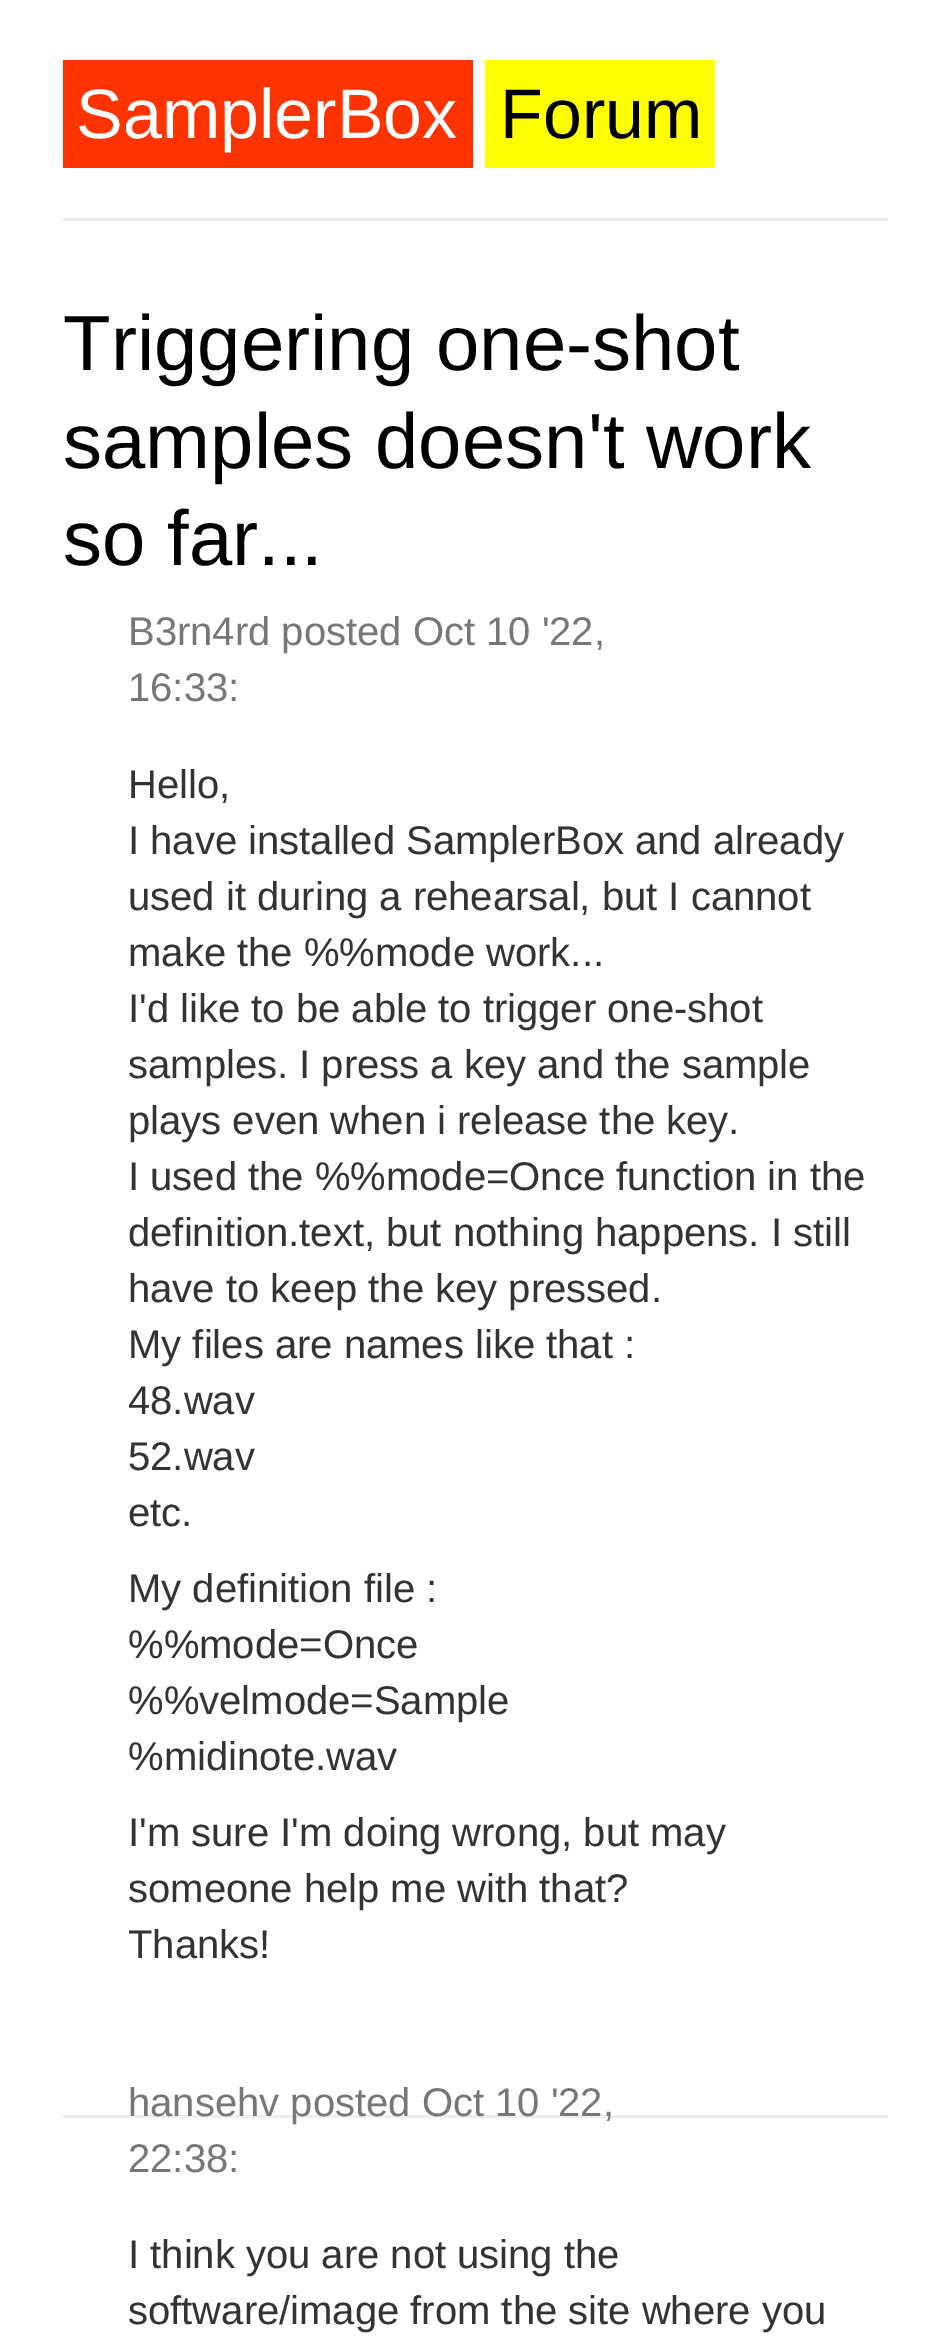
%!PS-Adobe-3.0
%%BoundingBox: 0 0 950 2346
%%LanguageLevel: 3
%%Pages: 1
%%EndComments
%%BeginProlog
/fn { [ exch dup neg 0 0 3 -1 roll 0 0 ] selectfont } def
/tx { moveto show } def
/bx { rectfill } def
%%EndProlog
%%BeginSetup
<< /PageSize [950 2346] >> setpagedevice
%%EndSetup
%%Page: 1 1
0 2346 translate 1 -1 scale
4 setmiterlimit
1 setgray
0 0 950 2346 bx
0.933 setgray
63 218 825 3 bx
1 0.2 0 setrgbcolor
63 60 410 108 bx
/LiberationSans-Regular 70 fn
1 setgray
(SamplerBox) 76 138 tx
1 1 0 setrgbcolor
485 60 230 108 bx
0 setgray
(Forum) 500 138 tx
/LiberationSans-Regular 78 fn
(Triggering one-shot) 63 370 tx
(samples doesn't work) 63 468 tx
(so far...) 63 565 tx
0.933 setgray
63 2115 825 3 bx
/LiberationSans-Regular 40 fn
0.467 setgray
(B3rn4rd posted Oct 10 '22,) 128 645 tx
(16:33:) 128 701 tx
0.2 setgray
(Hello,) 128 798 tx
(I have installed SamplerBox and already) 128 854 tx
(used it during a rehearsal, but I cannot) 128 910 tx
(make the %%mode work...) 128 966 tx
(I'd like to be able to trigger one-shot) 128 1022 tx
(samples. I press a key and the sample) 128 1078 tx
(plays even when i release the key.) 128 1134 tx
(I used the %%mode=Once function in the) 128 1190 tx
(definition.text, but nothing happens. I still) 128 1246 tx
(have to keep the key pressed.) 128 1302 tx
(My files are names like that :) 128 1358 tx
(48.wav) 128 1414 tx
(52.wav) 128 1470 tx
(etc.) 128 1526 tx
(My definition file :) 128 1602 tx
(%%mode=Once) 128 1658 tx
(%%velmode=Sample) 128 1714 tx
(%midinote.wav) 128 1770 tx
(I'm sure I'm doing wrong, but may) 128 1846 tx
(someone help me with that?) 128 1902 tx
(Thanks!) 128 1958 tx
0.467 setgray
(hansehv posted Oct 10 '22,) 128 2116 tx
(22:38:) 128 2172 tx
0.2 setgray
(I think you are not using the) 128 2268 tx
(software/image from the site where you) 128 2324 tx
showpage
%%EOF
